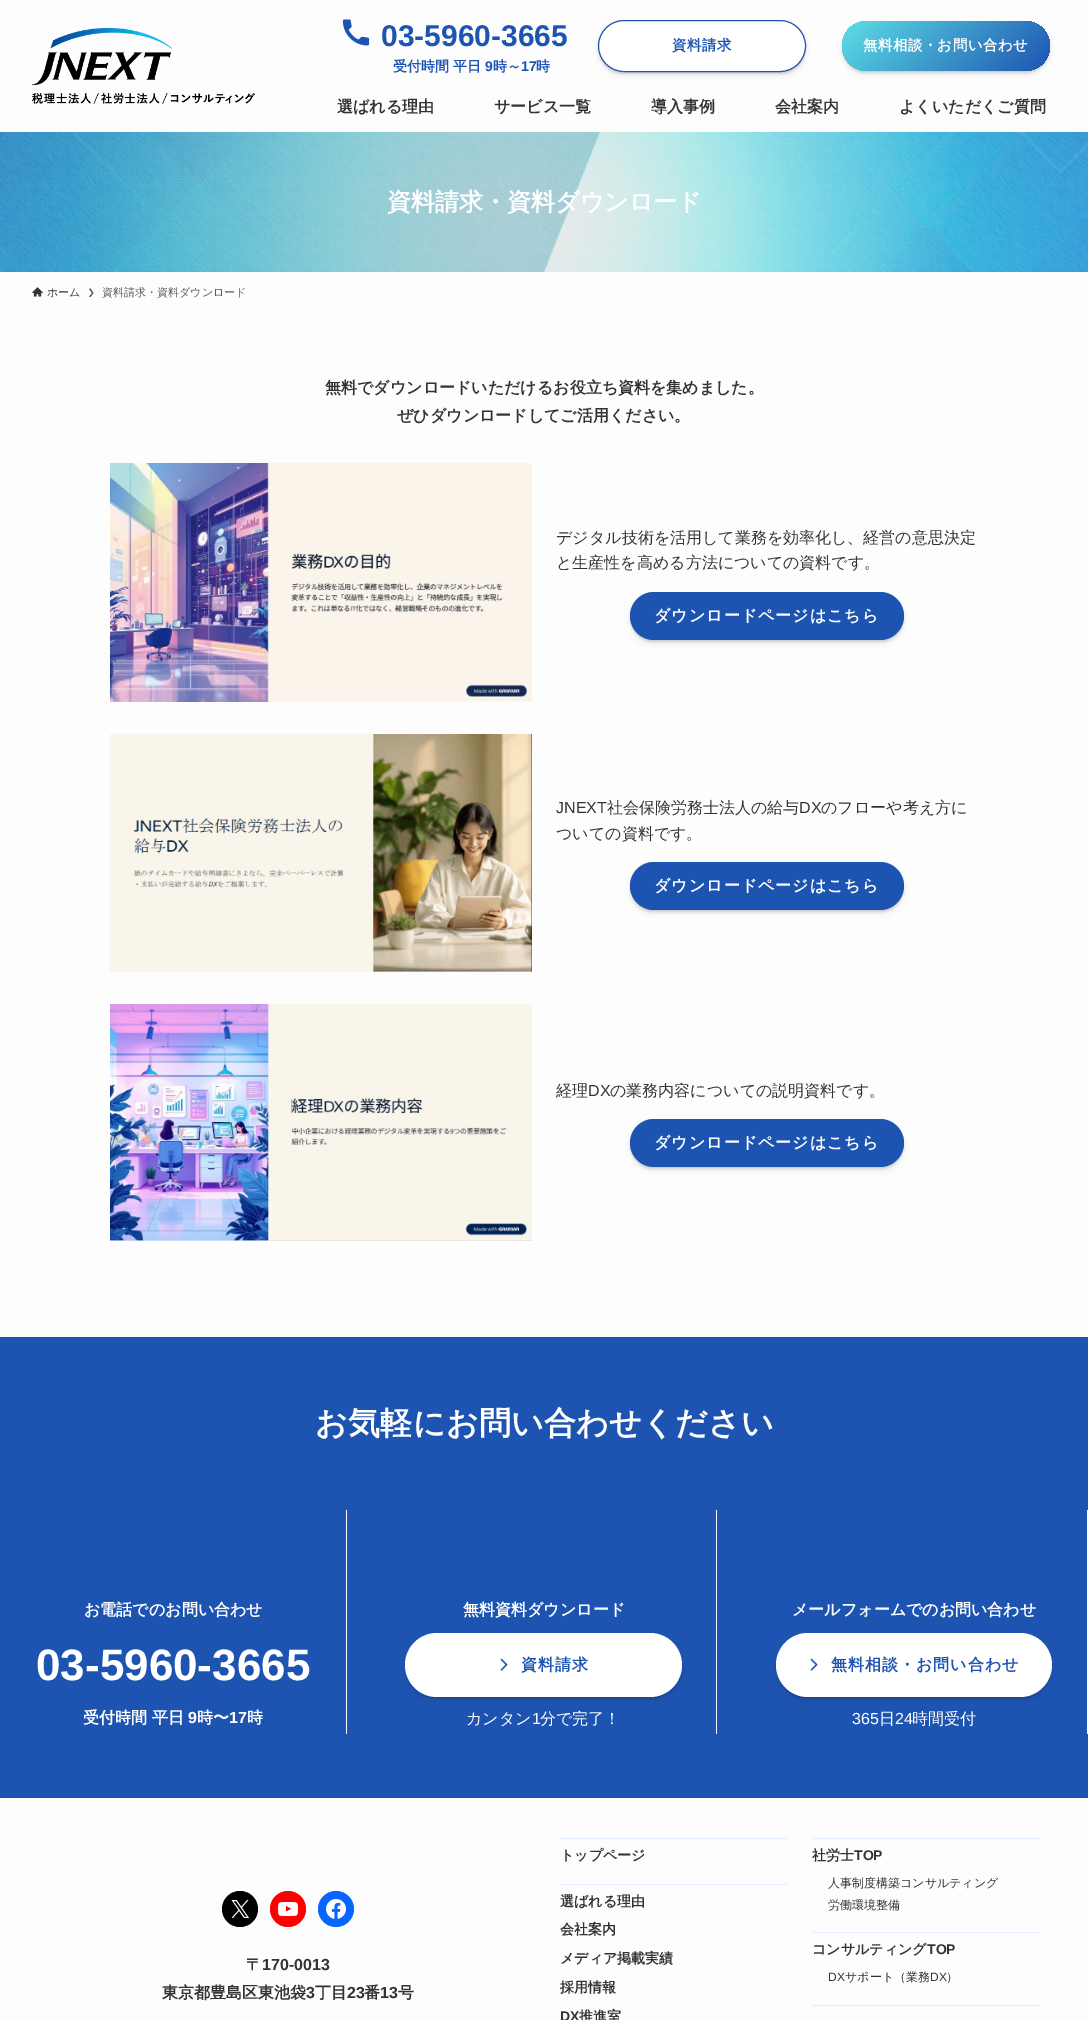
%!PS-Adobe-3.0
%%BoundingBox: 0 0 1088 2020
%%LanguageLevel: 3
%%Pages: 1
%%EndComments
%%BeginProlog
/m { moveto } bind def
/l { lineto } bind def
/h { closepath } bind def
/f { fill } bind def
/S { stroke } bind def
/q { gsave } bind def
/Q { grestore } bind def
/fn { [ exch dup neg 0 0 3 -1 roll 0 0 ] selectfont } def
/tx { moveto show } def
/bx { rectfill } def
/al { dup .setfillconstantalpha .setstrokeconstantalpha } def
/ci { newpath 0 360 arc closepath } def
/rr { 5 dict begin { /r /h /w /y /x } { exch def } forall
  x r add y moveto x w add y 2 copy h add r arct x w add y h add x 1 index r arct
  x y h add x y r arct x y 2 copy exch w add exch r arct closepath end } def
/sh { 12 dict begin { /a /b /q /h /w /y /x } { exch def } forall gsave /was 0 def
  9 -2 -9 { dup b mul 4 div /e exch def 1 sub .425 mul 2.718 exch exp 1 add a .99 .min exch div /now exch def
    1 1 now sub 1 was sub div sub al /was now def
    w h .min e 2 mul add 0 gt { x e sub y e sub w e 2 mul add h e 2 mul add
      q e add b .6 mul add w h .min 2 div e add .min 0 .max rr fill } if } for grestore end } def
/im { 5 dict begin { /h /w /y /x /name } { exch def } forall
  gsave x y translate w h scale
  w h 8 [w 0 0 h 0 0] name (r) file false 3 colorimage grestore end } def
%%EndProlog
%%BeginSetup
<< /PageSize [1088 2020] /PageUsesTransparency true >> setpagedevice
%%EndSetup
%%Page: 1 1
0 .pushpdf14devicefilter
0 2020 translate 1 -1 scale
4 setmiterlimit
0.992 setgray
0 0 1088 2020 bx
(image0.raw) 32 28 223 76 im
(image1.raw) 342 19 28 27 im
/LiberationSans-Bold 30 fn
0.118 0.329 0.694 setrgbcolor
(03-5960-3665) 381 46 tx
/WenQuanYiZenHei-Bold 14 fn
(受付時間 平日) 393 71 tx
/LiberationSans-Bold 14 fn
(9) 485 71 tx
/WenQuanYiZenHei-Bold 14 fn
(時～) 493 71 tx
/LiberationSans-Bold 14 fn
(17) 521 71 tx
/WenQuanYiZenHei-Bold 14 fn
(時) 536 71 tx
0 setgray
602 28 200 44 22 4 0.2 sh
598 22 208 52 26 1 0.1 sh
1 setgray
598.5 20.5 207 51 25.5 rr q f Q
0.118 0.329 0.694 setrgbcolor
S
/WenQuanYiZenHei-Bold 14.4 fn
672 50 m 0.5 0 (資料請求) ashow
0 setgray
846 29 200 42 21 4 0.2 sh
842 23 208 50 25 1 0.1 sh
q 842 21 208 50 25 rr clip newpath
<< /ShadingType 2 /ColorSpace /DeviceRGB /Coords [882 -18 1011 111] /Extend [true true] /Function << /FunctionType 2 /Domain [0 1] /C0 [0.361 0.871 0.898] /C1 [0.118 0.329 0.694] /N 1 >> >> shfill Q
1 setgray
863 50 m 0.5 0 (無料相談・お問い合わせ) ashow
/WenQuanYiZenHei-Bold 16 fn
0.2 setgray
(選ばれる理由) 337 112 tx
(サービス一覧) 494 112 tx
(導入事例) 651 112 tx
(会社案内) 775 112 tx
(よくいただくご質問) 899 112 tx
(image2.raw) 0 132 1088 140 im
(image3.raw) 0 132 1088 140 im
/WenQuanYiZenHei-Bold 24 fn
1 setgray
(資料請求・資料ダウンロード) 387 210 tx
(image4.raw) 32 287 11 10 im
/WenQuanYiZenHei-Medium 11 fn
0.2 setgray
(ホーム) 47 296 tx
0.357 setgray
90.5 288.5 m 89 289 l 92 293 l 89 297 l 90.5 297 l 93.5 293 l h f
(資料請求・資料ダウンロード) 102 296 tx
/WenQuanYiZenHei-Bold 16 fn
0.2 setgray
(無料でダウンロードいただけるお役立ち資料を集めました。) 325 393 tx
(ぜひダウンロードしてご活用ください。) 397 421 tx
(image5.raw) 110 463 422 239 im
/WenQuanYiZenHei-Medium 16 fn
(デジタル技術を活用して業務を効率化し、経営の意思決定) 556 543 tx
(と生産性を高める方法についての資料です。) 556 568 tx
0 setgray
634 600 266 40 20 4 0.2 sh
630 594 274 48 24 1 0.1 sh
0.118 0.329 0.694 setrgbcolor
630 592 274 48 24 rr f
/WenQuanYiZenHei-Bold 16 fn
1 setgray
654 621 m 1 0 (ダウンロードページはこちら) ashow
(image6.raw) 110 734 422 238 im
/LiberationSans-Regular 16 fn
0.2 setgray
(JNEXT) 556 813 tx
/WenQuanYiZenHei-Medium 16 fn
(社会保険労務士法人の給与) 607 813 tx
/LiberationSans-Regular 16 fn
(DX) 799 813 tx
/WenQuanYiZenHei-Medium 16 fn
(のフローや考え方に) 821 813 tx
(ついての資料です。) 556 839 tx
0 setgray
634 870 266 40 20 4 0.2 sh
630 864 274 48 24 1 0.1 sh
0.118 0.329 0.694 setrgbcolor
630 862 274 48 24 rr f
/WenQuanYiZenHei-Bold 16 fn
1 setgray
654 891 m 1 0 (ダウンロードページはこちら) ashow
(image7.raw) 110 1004 422 237 im
/WenQuanYiZenHei-Medium 16 fn
0.2 setgray
(経理) 556 1096 tx
/LiberationSans-Regular 16 fn
(DX) 588 1096 tx
/WenQuanYiZenHei-Medium 16 fn
(の業務内容についての説明資料です。) 610 1096 tx
0 setgray
634 1127 266 40 20 4 0.2 sh
630 1121 274 48 24 1 0.1 sh
0.118 0.329 0.694 setrgbcolor
630 1119 274 48 24 rr f
/WenQuanYiZenHei-Bold 16 fn
1 setgray
654 1148 m 1 0 (ダウンロードページはこちら) ashow
0.118 0.329 0.694 setrgbcolor
0 1337 1088 461 bx
/WenQuanYiZenHei-Bold 32 fn
1 setgray
315 1434 m 0.25 0 (お気軽にお問い合わせください) ashow
346 1510 1 224 bx
/WenQuanYiZenHei-Bold 16 fn
(お電話でのお問い合わせ) 84 1615 tx
/LiberationSans-Bold 44 fn
(03-5960-3665) 36 1680 tx
/WenQuanYiZenHei-Bold 16 fn
(受付時間 平日) 83 1723 tx
/LiberationSans-Bold 16 fn
(9) 188 1723 tx
/WenQuanYiZenHei-Bold 16 fn
(時〜) 197 1723 tx
/LiberationSans-Bold 16 fn
(17) 229 1723 tx
/WenQuanYiZenHei-Bold 16 fn
(時) 247 1723 tx
716 1510 1 224 bx
(無料資料ダウンロード) 463 1615 tx
0 setgray
409 1641 269 56 28 4 0.2 sh
405 1635 277 64 32 1 0.1 sh
1 setgray
405 1633 277 64 32 rr f
(image8.raw) 500 1658 8 13 im
0.118 0.329 0.694 setrgbcolor
521 1670 m 1 0 (資料請求) ashow
/WenQuanYiZenHei-Medium 16 fn
1 setgray
(カンタン) 466 1724 tx
/LiberationSans-Regular 16 fn
(1) 532 1724 tx
/WenQuanYiZenHei-Medium 16 fn
(分で完了！) 540 1724 tx
1087 1510 1 224 bx
/WenQuanYiZenHei-Bold 16 fn
(メールフォームでのお問い合わせ) 792 1615 tx
0 setgray
780 1641 268 56 28 4 0.2 sh
776 1635 276 64 32 1 0.1 sh
1 setgray
776 1633 276 64 32 rr f
(image8.raw) 810 1658 8 13 im
0.118 0.329 0.694 setrgbcolor
831 1670 m 1 0 (無料相談・お問い合わせ) ashow
/LiberationSans-Regular 16 fn
1 setgray
(365) 852 1724 tx
/WenQuanYiZenHei-Medium 16 fn
(日) 879 1724 tx
/LiberationSans-Regular 16 fn
(24) 895 1724 tx
/WenQuanYiZenHei-Medium 16 fn
(時間受付) 912 1724 tx
0 setgray
240 1909 18 ci f
(image9.raw) 231 1900 18 18 im
1 0 0 setrgbcolor
288 1909 18 ci f
(image10.raw) 278 1902 20 14 im
0.031 0.4 1 setrgbcolor
336 1909 18 ci f
(image11.raw) 326 1899 20 20 im
/WenQuanYiZenHei-Bold 16 fn
0.2 setgray
(〒) 246 1970 tx
/LiberationSans-Bold 16 fn
(170-0013) 262 1970 tx
/WenQuanYiZenHei-Bold 16 fn
(東京都豊島区東池袋) 162 1998 tx
/LiberationSans-Bold 16 fn
(3) 306 1998 tx
/WenQuanYiZenHei-Bold 16 fn
(丁目) 315 1998 tx
/LiberationSans-Bold 16 fn
(23) 347 1998 tx
/WenQuanYiZenHei-Bold 16 fn
(番) 364 1998 tx
/LiberationSans-Bold 16 fn
(13) 380 1998 tx
/WenQuanYiZenHei-Bold 16 fn
(号) 398 1998 tx
0.882 0.933 1 setrgbcolor
560 1838 228 1 bx
/WenQuanYiZenHei-Bold 14 fn
0.2 setgray
(トップページ) 560 1860 tx
0.882 0.933 1 setrgbcolor
560 1884 228 1 bx
0.2 setgray
(選ばれる理由) 560 1906 tx
(会社案内) 560 1934 tx
(メディア掲載実績) 560 1963 tx
(採用情報) 560 1992 tx
/LiberationSans-Bold 14 fn
(DX) 560 2021 tx
/WenQuanYiZenHei-Bold 14 fn
(推進室) 579 2021 tx
0.882 0.933 1 setrgbcolor
812 1838 228 1 bx
0.2 setgray
(社労士) 812 1860 tx
/LiberationSans-Bold 14 fn
(TOP) 854 1860 tx
/WenQuanYiZenHei-Medium 12 fn
(人事制度構築コンサルティング) 828 1887 tx
(労働環境整備) 828 1909 tx
0.882 0.933 1 setrgbcolor
812 1932 228 1 bx
/WenQuanYiZenHei-Bold 14 fn
0.2 setgray
(コンサルティング) 812 1954 tx
/LiberationSans-Bold 14 fn
(TOP) 927 1954 tx
/LiberationSans-Regular 12 fn
(DX) 828 1981 tx
/WenQuanYiZenHei-Medium 12 fn
(サポート（業務) 845 1981 tx
/LiberationSans-Regular 12 fn
(DX) 930 1981 tx
/WenQuanYiZenHei-Medium 12 fn
(）) 946 1981 tx
0.882 0.933 1 setrgbcolor
812 2005 228 1 bx
.poppdf14devicefilter showpage
%%EOF
